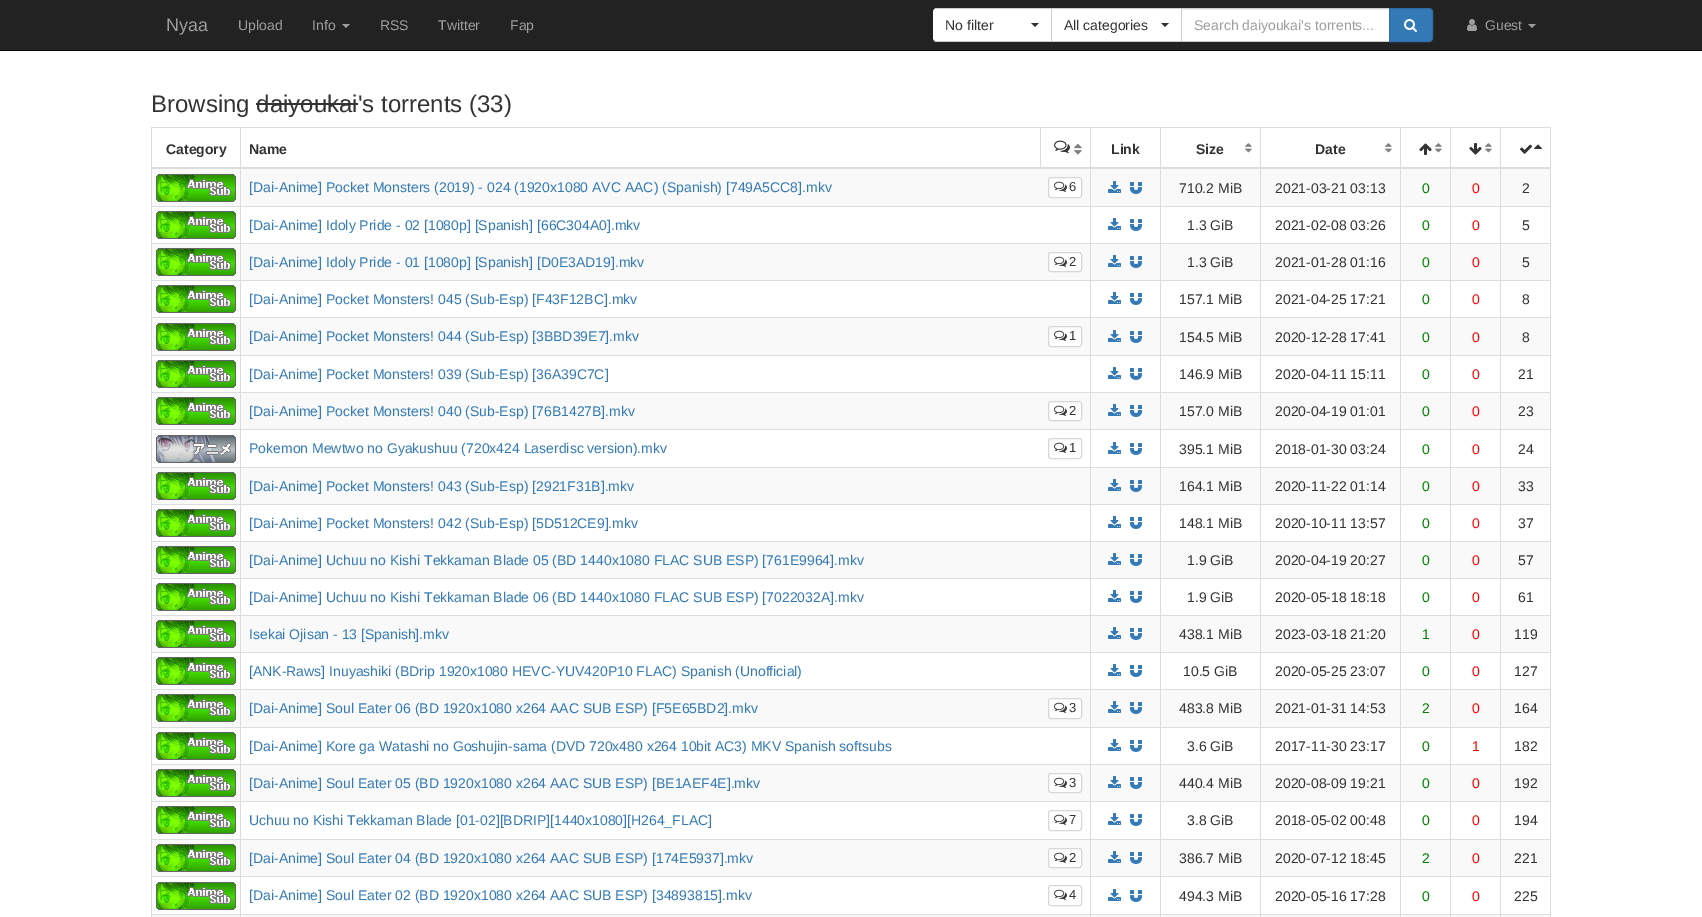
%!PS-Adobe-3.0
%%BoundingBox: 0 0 1702 917
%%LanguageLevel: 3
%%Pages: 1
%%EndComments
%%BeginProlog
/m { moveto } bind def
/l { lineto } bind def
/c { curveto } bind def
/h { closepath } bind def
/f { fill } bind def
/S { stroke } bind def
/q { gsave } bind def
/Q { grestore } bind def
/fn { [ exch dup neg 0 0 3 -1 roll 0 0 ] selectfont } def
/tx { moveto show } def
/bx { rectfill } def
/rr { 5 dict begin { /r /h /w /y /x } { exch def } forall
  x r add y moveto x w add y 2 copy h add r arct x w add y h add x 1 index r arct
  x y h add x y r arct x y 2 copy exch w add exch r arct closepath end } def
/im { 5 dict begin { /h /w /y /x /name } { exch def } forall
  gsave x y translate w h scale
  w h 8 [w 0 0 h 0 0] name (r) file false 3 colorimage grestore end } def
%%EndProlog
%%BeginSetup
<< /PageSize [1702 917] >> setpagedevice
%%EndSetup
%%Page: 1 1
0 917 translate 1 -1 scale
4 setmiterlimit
1 setgray
0 0 1702 917 bx
0.133 setgray
0 0 1702 50 bx
0.031 setgray
0 50 1702 1 bx
/LiberationSans-Regular 18 fn
0.616 setgray
(Nyaa) 166 31 tx
/LiberationSans-Regular 14 fn
(Upload) 238 30 tx
(Info) 312 30 tx
342 24 m 350 24 l 346 28 l h f
(RSS) 380 30 tx
(Twitter) 438 30 tx
(Fap) 510 30 tx
1 setgray
937 8 m 1052 8 l 1052 42 l 937 42 l 935 42 933 40 933 38 c 933 12 l 933 10 935 8 937 8 c h f
0.8 setgray
935 8 455 1 bx
1051 8 1 34 bx
935 41 117 1 bx
0.2 setgray
(No filter) 945 30 tx
1031 23 m 1039 23 l 1035 27 l h f
1 setgray
1052 9 129 32 bx
0.8 setgray
1181 8 1 34 bx
1052 41 338 1 bx
0.2 setgray
(All categories) 1064 30 tx
1161 23 m 1169 23 l 1165 27 l h f
1 setgray
1182 10 207 31 bx
0.925 setgray
1182 9 207 1 bx
0.616 setgray
(Search daiyoukai's torrents...) 1194 30 tx
0.2 0.478 0.718 setrgbcolor
1389.5 8.5 m 1429 8.5 l 1431 8.5 1432.5 10 1432.5 12 c 1432.5 38 l 1432.5 40 1431 41.5 1429 41.5 c 1389.5 41.5 l h q f Q
0.18 0.427 0.643 setrgbcolor
S
(image0.raw) 1404 19 13 13 im
(image1.raw) 1467 19 10 12 im
0.616 setgray
(Guest) 1485 30 tx
1528 24 m 1536 24 l 1532 28 l h f
/LiberationSans-Regular 24 fn
0.2 setgray
(Browsing daiyoukai's torrents \(33\)) 151 112 tx
256 103 102 2 bx
0.867 setgray
151 127 1400 1 bx
0.976 setgray
152 915 1399 2 bx
0.867 setgray
1550 127 1 790 bx
151 127 1 790 bx
(image2.raw) 1054 140 16 14 im
(image3.raw) 1074 143 8 12 im
/LiberationSans-Bold 14 fn
0.2 setgray
(Link) 1111 154 tx
(Size) 1196 154 tx
(image4.raw) 1245 143 7 10 im
(image5.raw) 1419 143 13 12 im
(image4.raw) 1435 143 7 10 im
(image6.raw) 1469 143 13 12 im
(image4.raw) 1485 143 7 10 im
0.867 setgray
1040 127 1 42 bx
0.976 setgray
152 169 1398 37 bx
0.867 setgray
1500 206 51 1 bx
1500 243 51 1 bx
0.976 setgray
152 244 1398 36 bx
0.867 setgray
1500 280 51 1 bx
1500 317 51 1 bx
0.976 setgray
152 318 1398 37 bx
0.867 setgray
1500 355 51 1 bx
1500 392 51 1 bx
0.976 setgray
152 393 1398 36 bx
0.867 setgray
1500 429 51 1 bx
1500 467 51 1 bx
0.976 setgray
152 468 1398 36 bx
0.867 setgray
1500 504 51 1 bx
1500 541 51 1 bx
0.976 setgray
152 542 1398 36 bx
0.867 setgray
1500 578 51 1 bx
1500 615 51 1 bx
0.976 setgray
152 616 1398 36 bx
0.867 setgray
1500 652 51 1 bx
1500 689 51 1 bx
0.976 setgray
152 690 1398 37 bx
0.867 setgray
1500 727 51 1 bx
1500 764 51 1 bx
0.976 setgray
152 765 1398 36 bx
0.867 setgray
1500 801 51 1 bx
1500 839 51 1 bx
0.976 setgray
152 840 1398 36 bx
0.867 setgray
1500 876 51 1 bx
1500 914 51 1 bx
1500 914 1 3 bx
1450 914 51 1 bx
1500 876 1 39 bx
1450 876 51 1 bx
1500 839 1 38 bx
1450 839 51 1 bx
1500 801 1 39 bx
1450 801 51 1 bx
1500 764 1 38 bx
1450 764 51 1 bx
1500 727 1 38 bx
1450 727 51 1 bx
1500 689 1 39 bx
1450 689 51 1 bx
1500 652 1 38 bx
1450 652 51 1 bx
1500 615 1 38 bx
1450 615 51 1 bx
1500 578 1 38 bx
1450 578 51 1 bx
1500 541 1 38 bx
1450 541 51 1 bx
1500 504 1 38 bx
1450 504 51 1 bx
1500 467 1 38 bx
1450 467 51 1 bx
1500 429 1 39 bx
1450 429 51 1 bx
1500 392 1 38 bx
1450 392 51 1 bx
1500 355 1 38 bx
1450 355 51 1 bx
1500 317 1 39 bx
1450 317 51 1 bx
1500 280 1 38 bx
1450 280 51 1 bx
1500 243 1 38 bx
1450 243 51 1 bx
1500 206 1 38 bx
1450 206 51 1 bx
1450 914 1 3 bx
1400 914 51 1 bx
1450 876 1 39 bx
1400 876 51 1 bx
1450 839 1 38 bx
1400 839 51 1 bx
1450 801 1 39 bx
1400 801 51 1 bx
1450 764 1 38 bx
1400 764 51 1 bx
1450 727 1 38 bx
1400 727 51 1 bx
1450 689 1 39 bx
1400 689 51 1 bx
1450 652 1 38 bx
1400 652 51 1 bx
1450 615 1 38 bx
1400 615 51 1 bx
1450 578 1 38 bx
1400 578 51 1 bx
1450 541 1 38 bx
1400 541 51 1 bx
1450 504 1 38 bx
1400 504 51 1 bx
1450 467 1 38 bx
1400 467 51 1 bx
1450 429 1 39 bx
1400 429 51 1 bx
1450 392 1 38 bx
1400 392 51 1 bx
1450 355 1 38 bx
1400 355 51 1 bx
1450 317 1 39 bx
1400 317 51 1 bx
1450 280 1 38 bx
1400 280 51 1 bx
1450 243 1 38 bx
1400 243 51 1 bx
1450 206 1 38 bx
1400 206 51 1 bx
1400 914 1 3 bx
1260 914 141 1 bx
1400 876 1 39 bx
1260 876 141 1 bx
1400 839 1 38 bx
1260 839 141 1 bx
1400 801 1 39 bx
1260 801 141 1 bx
1400 764 1 38 bx
1260 764 141 1 bx
1400 727 1 38 bx
1260 727 141 1 bx
1400 689 1 39 bx
1260 689 141 1 bx
1400 652 1 38 bx
1260 652 141 1 bx
1400 615 1 38 bx
1260 615 141 1 bx
1400 578 1 38 bx
1260 578 141 1 bx
1400 541 1 38 bx
1260 541 141 1 bx
1400 504 1 38 bx
1260 504 141 1 bx
1400 467 1 38 bx
1260 467 141 1 bx
1400 429 1 39 bx
1260 429 141 1 bx
1400 392 1 38 bx
1260 392 141 1 bx
1400 355 1 38 bx
1260 355 141 1 bx
1400 317 1 39 bx
1260 317 141 1 bx
1400 280 1 38 bx
1260 280 141 1 bx
1400 243 1 38 bx
1260 243 141 1 bx
1400 206 1 38 bx
1260 206 141 1 bx
1260 914 1 3 bx
1160 914 101 1 bx
1260 876 1 39 bx
1160 876 101 1 bx
1260 839 1 38 bx
1160 839 101 1 bx
1260 801 1 39 bx
1160 801 101 1 bx
1260 764 1 38 bx
1160 764 101 1 bx
1260 727 1 38 bx
1160 727 101 1 bx
1260 689 1 39 bx
1160 689 101 1 bx
1260 652 1 38 bx
1160 652 101 1 bx
1260 615 1 38 bx
1160 615 101 1 bx
1260 578 1 38 bx
1160 578 101 1 bx
1260 541 1 38 bx
1160 541 101 1 bx
1260 504 1 38 bx
1160 504 101 1 bx
1260 467 1 38 bx
1160 467 101 1 bx
1260 429 1 39 bx
1160 429 101 1 bx
1260 392 1 38 bx
1160 392 101 1 bx
1260 355 1 38 bx
1160 355 101 1 bx
1260 317 1 39 bx
1160 317 101 1 bx
1260 280 1 38 bx
1160 280 101 1 bx
1260 243 1 38 bx
1160 243 101 1 bx
1260 206 1 38 bx
1160 206 101 1 bx
1160 914 1 3 bx
1090 914 71 1 bx
1160 876 1 39 bx
1090 876 71 1 bx
1160 839 1 38 bx
1090 839 71 1 bx
1160 801 1 39 bx
1090 801 71 1 bx
1160 764 1 38 bx
1090 764 71 1 bx
1160 727 1 38 bx
1090 727 71 1 bx
1160 689 1 39 bx
1090 689 71 1 bx
1160 652 1 38 bx
1090 652 71 1 bx
1160 615 1 38 bx
1090 615 71 1 bx
1160 578 1 38 bx
1090 578 71 1 bx
1160 541 1 38 bx
1090 541 71 1 bx
1160 504 1 38 bx
1090 504 71 1 bx
1160 467 1 38 bx
1090 467 71 1 bx
1160 429 1 39 bx
1090 429 71 1 bx
1160 392 1 38 bx
1090 392 71 1 bx
1160 355 1 38 bx
1090 355 71 1 bx
1160 317 1 39 bx
1090 317 71 1 bx
1160 280 1 38 bx
1090 280 71 1 bx
1160 243 1 38 bx
1090 243 71 1 bx
1160 206 1 38 bx
1090 206 71 1 bx
1090 914 1 3 bx
240 914 851 1 bx
1090 876 1 39 bx
240 876 851 1 bx
1090 839 1 38 bx
240 839 851 1 bx
1090 801 1 39 bx
240 801 851 1 bx
1090 764 1 38 bx
240 764 851 1 bx
1090 727 1 38 bx
240 727 851 1 bx
1090 689 1 39 bx
240 689 851 1 bx
1090 652 1 38 bx
240 652 851 1 bx
1090 615 1 38 bx
240 615 851 1 bx
1090 578 1 38 bx
240 578 851 1 bx
1090 541 1 38 bx
240 541 851 1 bx
1090 504 1 38 bx
240 504 851 1 bx
1090 467 1 38 bx
240 467 851 1 bx
1090 429 1 39 bx
240 429 851 1 bx
1090 392 1 38 bx
240 392 851 1 bx
1090 355 1 38 bx
240 355 851 1 bx
1090 317 1 39 bx
240 317 851 1 bx
1090 280 1 38 bx
240 280 851 1 bx
1090 243 1 38 bx
240 243 851 1 bx
1090 206 1 38 bx
240 206 851 1 bx
240 914 1 3 bx
151 914 90 1 bx
240 876 1 39 bx
151 876 90 1 bx
240 839 1 38 bx
151 839 90 1 bx
240 801 1 39 bx
151 801 90 1 bx
240 764 1 38 bx
151 764 90 1 bx
240 727 1 38 bx
151 727 90 1 bx
240 689 1 39 bx
151 689 90 1 bx
240 652 1 38 bx
151 652 90 1 bx
240 615 1 38 bx
151 615 90 1 bx
240 578 1 38 bx
151 578 90 1 bx
240 541 1 38 bx
151 541 90 1 bx
240 504 1 38 bx
151 504 90 1 bx
240 467 1 38 bx
151 467 90 1 bx
240 429 1 39 bx
151 429 90 1 bx
240 392 1 38 bx
151 392 90 1 bx
240 355 1 38 bx
151 355 90 1 bx
240 317 1 39 bx
151 317 90 1 bx
240 280 1 38 bx
151 280 90 1 bx
240 243 1 38 bx
151 243 90 1 bx
240 206 1 38 bx
151 206 90 1 bx
240 127 1 80 bx
1090 127 1 80 bx
1160 127 1 80 bx
1260 127 1 80 bx
1400 127 1 80 bx
1450 127 1 80 bx
1500 127 1 80 bx
151 167 1400 2 bx
(image7.raw) 1520 144 12 10 im
(image8.raw) 1534 144 8 5 im
0.2 setgray
(Category) 166 154 tx
(Name) 249 154 tx
(Date) 1315 154 tx
(image4.raw) 1385 143 7 10 im
(image9.raw) 156 174 80 28 im
/LiberationSans-Regular 14 fn
0.2 0.478 0.718 setrgbcolor
([Dai-Anime] Pocket Monsters \(2019\) - 024 \(1920x1080 AVC AAC\) \(Spanish\) [749A5CC8].mkv) 249 192 tx
1 setgray
1048.5 177.5 33 20 2.5 rr q f Q
0.843 setgray
S
(image10.raw) 1054 181 13 11 im
/LiberationSans-Regular 13 fn
0.2 setgray
(6) 1069 191 tx
(image11.raw) 1108 181 13 12 im
(image12.raw) 1130 182 12 12 im
/LiberationSans-Regular 14 fn
(710.2 MiB) 1179 193 tx
(2021-03-21 03:13) 1275 193 tx
0 0.502 0 setrgbcolor
(0) 1422 193 tx
1 0 0 setrgbcolor
(0) 1472 193 tx
0.2 setgray
(2) 1522 193 tx
(image13.raw) 156 211 80 28 im
0.2 0.478 0.718 setrgbcolor
([Dai-Anime] Idoly Pride - 02 [1080p] [Spanish] [66C304A0].mkv) 249 230 tx
(image14.raw) 1108 218 13 12 im
(image15.raw) 1130 219 12 12 im
0.2 setgray
(1.3 GiB) 1187 230 tx
(2021-02-08 03:26) 1275 230 tx
0 0.502 0 setrgbcolor
(0) 1422 230 tx
1 0 0 setrgbcolor
(0) 1472 230 tx
0.2 setgray
(5) 1522 230 tx
(image9.raw) 156 248 80 28 im
0.2 0.478 0.718 setrgbcolor
([Dai-Anime] Idoly Pride - 01 [1080p] [Spanish] [D0E3AD19].mkv) 249 267 tx
1 setgray
1048.5 252.5 33 19 2.5 rr q f Q
0.843 setgray
S
(image10.raw) 1054 256 13 11 im
/LiberationSans-Regular 13 fn
0.2 setgray
(2) 1069 266 tx
(image11.raw) 1108 255 13 12 im
(image12.raw) 1130 256 12 12 im
/LiberationSans-Regular 14 fn
(1.3 GiB) 1187 267 tx
(2021-01-28 01:16) 1275 267 tx
0 0.502 0 setrgbcolor
(0) 1422 267 tx
1 0 0 setrgbcolor
(0) 1472 267 tx
0.2 setgray
(5) 1522 267 tx
(image13.raw) 156 285 80 28 im
0.2 0.478 0.718 setrgbcolor
([Dai-Anime] Pocket Monsters! 045 \(Sub-Esp\) [F43F12BC].mkv) 249 304 tx
(image14.raw) 1108 292 13 12 im
(image15.raw) 1130 293 12 12 im
0.2 setgray
(157.1 MiB) 1179 304 tx
(2021-04-25 17:21) 1275 304 tx
0 0.502 0 setrgbcolor
(0) 1422 304 tx
1 0 0 setrgbcolor
(0) 1472 304 tx
0.2 setgray
(8) 1522 304 tx
(image9.raw) 156 323 80 28 im
0.2 0.478 0.718 setrgbcolor
([Dai-Anime] Pocket Monsters! 044 \(Sub-Esp\) [3BBD39E7].mkv) 249 341 tx
1 setgray
1048.5 326.5 33 20 2.5 rr q f Q
0.843 setgray
S
(image10.raw) 1054 330 13 11 im
/LiberationSans-Regular 13 fn
0.2 setgray
(1) 1069 340 tx
(image11.raw) 1108 330 13 12 im
(image12.raw) 1130 331 12 12 im
/LiberationSans-Regular 14 fn
(154.5 MiB) 1179 342 tx
(2020-12-28 17:41) 1275 342 tx
0 0.502 0 setrgbcolor
(0) 1422 342 tx
1 0 0 setrgbcolor
(0) 1472 342 tx
0.2 setgray
(8) 1522 342 tx
(image13.raw) 156 360 80 28 im
0.2 0.478 0.718 setrgbcolor
([Dai-Anime] Pocket Monsters! 039 \(Sub-Esp\) [36A39C7C]) 249 379 tx
(image14.raw) 1108 367 13 12 im
(image15.raw) 1130 368 12 12 im
0.2 setgray
(146.9 MiB) 1179 379 tx
(2020-04-11 15:11) 1275 379 tx
0 0.502 0 setrgbcolor
(0) 1422 379 tx
1 0 0 setrgbcolor
(0) 1472 379 tx
0.2 setgray
(21) 1518 379 tx
(image9.raw) 156 397 80 28 im
0.2 0.478 0.718 setrgbcolor
([Dai-Anime] Pocket Monsters! 040 \(Sub-Esp\) [76B1427B].mkv) 249 416 tx
1 setgray
1048.5 401.5 33 19 2.5 rr q f Q
0.843 setgray
S
(image10.raw) 1054 405 13 11 im
/LiberationSans-Regular 13 fn
0.2 setgray
(2) 1069 415 tx
(image11.raw) 1108 404 13 12 im
(image12.raw) 1130 405 12 12 im
/LiberationSans-Regular 14 fn
(157.0 MiB) 1179 416 tx
(2020-04-19 01:01) 1275 416 tx
0 0.502 0 setrgbcolor
(0) 1422 416 tx
1 0 0 setrgbcolor
(0) 1472 416 tx
0.2 setgray
(23) 1518 416 tx
(image16.raw) 156 435 80 28 im
0.2 0.478 0.718 setrgbcolor
(Pokemon Mewtwo no Gyakushuu \(720x424 Laserdisc version\).mkv) 249 453 tx
0.843 setgray
1048.5 438.5 33 20 2.5 rr S
(image10.raw) 1054 442 13 11 im
/LiberationSans-Regular 13 fn
0.2 setgray
(1) 1069 452 tx
(image14.raw) 1108 442 13 12 im
(image15.raw) 1130 443 12 12 im
/LiberationSans-Regular 14 fn
(395.1 MiB) 1179 454 tx
(2018-01-30 03:24) 1275 454 tx
0 0.502 0 setrgbcolor
(0) 1422 454 tx
1 0 0 setrgbcolor
(0) 1472 454 tx
0.2 setgray
(24) 1518 454 tx
(image9.raw) 156 472 80 28 im
0.2 0.478 0.718 setrgbcolor
([Dai-Anime] Pocket Monsters! 043 \(Sub-Esp\) [2921F31B].mkv) 249 491 tx
(image11.raw) 1108 479 13 12 im
(image12.raw) 1130 480 12 12 im
0.2 setgray
(164.1 MiB) 1179 491 tx
(2020-11-22 01:14) 1275 491 tx
0 0.502 0 setrgbcolor
(0) 1422 491 tx
1 0 0 setrgbcolor
(0) 1472 491 tx
0.2 setgray
(33) 1518 491 tx
(image13.raw) 156 509 80 28 im
0.2 0.478 0.718 setrgbcolor
([Dai-Anime] Pocket Monsters! 042 \(Sub-Esp\) [5D512CE9].mkv) 249 528 tx
(image14.raw) 1108 516 13 12 im
(image15.raw) 1130 517 12 12 im
0.2 setgray
(148.1 MiB) 1179 528 tx
(2020-10-11 13:57) 1275 528 tx
0 0.502 0 setrgbcolor
(0) 1422 528 tx
1 0 0 setrgbcolor
(0) 1472 528 tx
0.2 setgray
(37) 1518 528 tx
(image9.raw) 156 546 80 28 im
0.2 0.478 0.718 setrgbcolor
([Dai-Anime] Uchuu no Kishi Tekkaman Blade 05 \(BD 1440x1080 FLAC SUB ESP\) [761E9964].mkv) 249 565 tx
(image11.raw) 1108 553 13 12 im
(image12.raw) 1130 554 12 12 im
0.2 setgray
(1.9 GiB) 1187 565 tx
(2020-04-19 20:27) 1275 565 tx
0 0.502 0 setrgbcolor
(0) 1422 565 tx
1 0 0 setrgbcolor
(0) 1472 565 tx
0.2 setgray
(57) 1518 565 tx
(image13.raw) 156 583 80 28 im
0.2 0.478 0.718 setrgbcolor
([Dai-Anime] Uchuu no Kishi Tekkaman Blade 06 \(BD 1440x1080 FLAC SUB ESP\) [7022032A].mkv) 249 602 tx
(image14.raw) 1108 590 13 12 im
(image15.raw) 1130 591 12 12 im
0.2 setgray
(1.9 GiB) 1187 602 tx
(2020-05-18 18:18) 1275 602 tx
0 0.502 0 setrgbcolor
(0) 1422 602 tx
1 0 0 setrgbcolor
(0) 1472 602 tx
0.2 setgray
(61) 1518 602 tx
(image9.raw) 156 620 80 28 im
0.2 0.478 0.718 setrgbcolor
(Isekai Ojisan - 13 [Spanish].mkv) 249 639 tx
(image11.raw) 1108 627 13 12 im
(image12.raw) 1130 628 12 12 im
0.2 setgray
(438.1 MiB) 1179 639 tx
(2023-03-18 21:20) 1275 639 tx
0 0.502 0 setrgbcolor
(1) 1422 639 tx
1 0 0 setrgbcolor
(0) 1472 639 tx
0.2 setgray
(119) 1514 639 tx
(image13.raw) 156 657 80 28 im
0.2 0.478 0.718 setrgbcolor
([ANK-Raws] Inuyashiki \(BDrip 1920x1080 HEVC-YUV420P10 FLAC\) Spanish \(Unofficial\)) 249 676 tx
(image14.raw) 1108 664 13 12 im
(image15.raw) 1130 665 12 12 im
0.2 setgray
(10.5 GiB) 1183 676 tx
(2020-05-25 23:07) 1275 676 tx
0 0.502 0 setrgbcolor
(0) 1422 676 tx
1 0 0 setrgbcolor
(0) 1472 676 tx
0.2 setgray
(127) 1514 676 tx
(image9.raw) 156 694 80 28 im
0.2 0.478 0.718 setrgbcolor
([Dai-Anime] Soul Eater 06 \(BD 1920x1080 x264 AAC SUB ESP\) [F5E65BD2].mkv) 249 713 tx
1 setgray
1048.5 698.5 33 20 2.5 rr q f Q
0.843 setgray
S
(image10.raw) 1054 702 13 11 im
/LiberationSans-Regular 13 fn
0.2 setgray
(3) 1069 712 tx
(image11.raw) 1108 701 13 12 im
(image12.raw) 1130 702 12 12 im
/LiberationSans-Regular 14 fn
(483.8 MiB) 1179 713 tx
(2021-01-31 14:53) 1275 713 tx
0 0.502 0 setrgbcolor
(2) 1422 713 tx
1 0 0 setrgbcolor
(0) 1472 713 tx
0.2 setgray
(164) 1514 713 tx
(image13.raw) 156 732 80 28 im
0.2 0.478 0.718 setrgbcolor
([Dai-Anime] Kore ga Watashi no Goshujin-sama \(DVD 720x480 x264 10bit AC3\) MKV Spanish softsubs) 249 751 tx
(image14.raw) 1108 739 13 12 im
(image15.raw) 1130 740 12 12 im
0.2 setgray
(3.6 GiB) 1187 751 tx
(2017-11-30 23:17) 1275 751 tx
0 0.502 0 setrgbcolor
(0) 1422 751 tx
1 0 0 setrgbcolor
(1) 1472 751 tx
0.2 setgray
(182) 1514 751 tx
(image9.raw) 156 769 80 28 im
0.2 0.478 0.718 setrgbcolor
([Dai-Anime] Soul Eater 05 \(BD 1920x1080 x264 AAC SUB ESP\) [BE1AEF4E].mkv) 249 788 tx
1 setgray
1048.5 773.5 33 19 2.5 rr q f Q
0.843 setgray
S
(image10.raw) 1054 777 13 11 im
/LiberationSans-Regular 13 fn
0.2 setgray
(3) 1069 787 tx
(image11.raw) 1108 776 13 12 im
(image12.raw) 1130 777 12 12 im
/LiberationSans-Regular 14 fn
(440.4 MiB) 1179 788 tx
(2020-08-09 19:21) 1275 788 tx
0 0.502 0 setrgbcolor
(0) 1422 788 tx
1 0 0 setrgbcolor
(0) 1472 788 tx
0.2 setgray
(192) 1514 788 tx
(image13.raw) 156 806 80 28 im
0.2 0.478 0.718 setrgbcolor
(Uchuu no Kishi Tekkaman Blade [01-02][BDRIP][1440x1080][H264_FLAC]) 249 825 tx
0.843 setgray
1048.5 810.5 33 20 2.5 rr S
(image10.raw) 1054 814 13 11 im
/LiberationSans-Regular 13 fn
0.2 setgray
(7) 1069 824 tx
(image14.raw) 1108 813 13 12 im
(image15.raw) 1130 814 12 12 im
/LiberationSans-Regular 14 fn
(3.8 GiB) 1187 825 tx
(2018-05-02 00:48) 1275 825 tx
0 0.502 0 setrgbcolor
(0) 1422 825 tx
1 0 0 setrgbcolor
(0) 1472 825 tx
0.2 setgray
(194) 1514 825 tx
(image9.raw) 156 844 80 28 im
0.2 0.478 0.718 setrgbcolor
([Dai-Anime] Soul Eater 04 \(BD 1920x1080 x264 AAC SUB ESP\) [174E5937].mkv) 249 863 tx
1 setgray
1048.5 848.5 33 19 2.5 rr q f Q
0.843 setgray
S
(image10.raw) 1054 852 13 11 im
/LiberationSans-Regular 13 fn
0.2 setgray
(2) 1069 862 tx
(image11.raw) 1108 851 13 12 im
(image12.raw) 1130 852 12 12 im
/LiberationSans-Regular 14 fn
(386.7 MiB) 1179 863 tx
(2020-07-12 18:45) 1275 863 tx
0 0.502 0 setrgbcolor
(2) 1422 863 tx
1 0 0 setrgbcolor
(0) 1472 863 tx
0.2 setgray
(221) 1514 863 tx
(image13.raw) 156 882 80 28 im
0.2 0.478 0.718 setrgbcolor
([Dai-Anime] Soul Eater 02 \(BD 1920x1080 x264 AAC SUB ESP\) [34893815].mkv) 249 900 tx
0.843 setgray
1048.5 885.5 33 20 2.5 rr S
(image10.raw) 1054 889 13 11 im
/LiberationSans-Regular 13 fn
0.2 setgray
(4) 1069 899 tx
(image14.raw) 1108 889 13 12 im
(image15.raw) 1130 890 12 12 im
/LiberationSans-Regular 14 fn
(494.3 MiB) 1179 901 tx
(2020-05-16 17:28) 1275 901 tx
0 0.502 0 setrgbcolor
(0) 1422 901 tx
1 0 0 setrgbcolor
(0) 1472 901 tx
0.2 setgray
(225) 1514 901 tx
showpage
%%EOF
